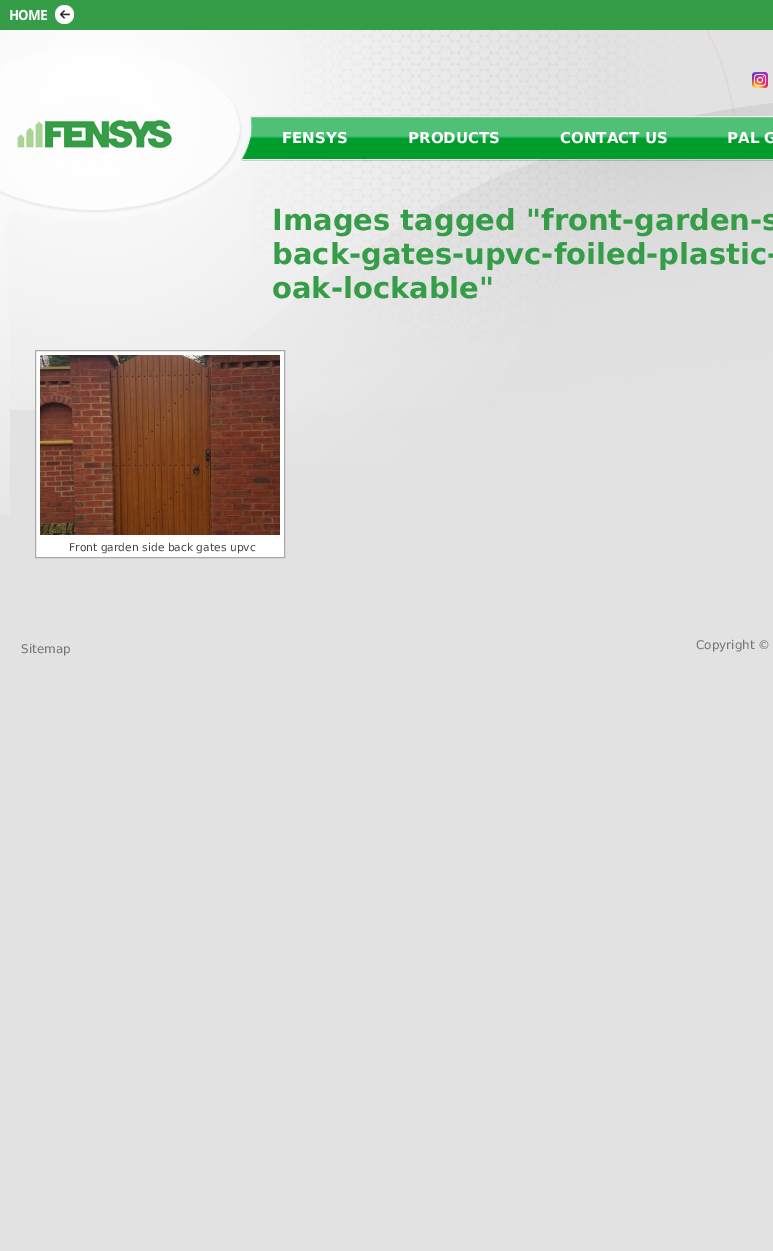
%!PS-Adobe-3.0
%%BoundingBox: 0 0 773 1251
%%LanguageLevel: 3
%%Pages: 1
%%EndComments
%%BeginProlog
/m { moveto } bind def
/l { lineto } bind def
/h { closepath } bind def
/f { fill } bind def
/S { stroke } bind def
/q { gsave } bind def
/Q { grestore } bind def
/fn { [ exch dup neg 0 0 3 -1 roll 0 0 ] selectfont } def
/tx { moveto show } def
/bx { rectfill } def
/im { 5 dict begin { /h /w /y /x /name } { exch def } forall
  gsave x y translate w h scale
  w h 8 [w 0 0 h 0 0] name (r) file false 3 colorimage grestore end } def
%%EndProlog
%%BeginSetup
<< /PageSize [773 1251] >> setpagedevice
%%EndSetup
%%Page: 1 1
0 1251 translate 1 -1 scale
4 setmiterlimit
0.886 setgray
0 0 773 1251 bx
0.208 0.616 0.282 setrgbcolor
0 0 773 30 bx
(image0.raw) 10 5 64 19 im
(image1.raw) 0 30 773 485 im
(image2.raw) 752 72 16 16 im
(image3.raw) 17 120 155 28 im
/DejaVuSans-Bold 15 fn
1 setgray
(FENSYS) 282 143 tx
(PRODUCTS) 408 143 tx
(CONTACT US) 560 143 tx
(PAL G) 727 143 tx
/DejaVuSans-Bold 29 fn
0.208 0.616 0.282 setrgbcolor
(Images tagged "front-garden-s) 272 230 tx
(back-gates-upvc-foiled-plastic-) 272 264 tx
(oak-lockable") 272 298 tx
1 setgray
35.5 350.5 m 284.5 350.5 l 284.5 557.5 l 35.5 557.5 l h q f Q
0.663 setgray
S
(image4.raw) 40 355 240 180 im
/DejaVuSans-Regular 10.75 fn
0.267 setgray
(Front garden side back gates upvc) 69 551 tx
/DejaVuSans-Regular 12 fn
0.451 0.455 0.455 setrgbcolor
(Sitemap) 21 653 tx
(Copyright ©) 696 649 tx
showpage
%%EOF
